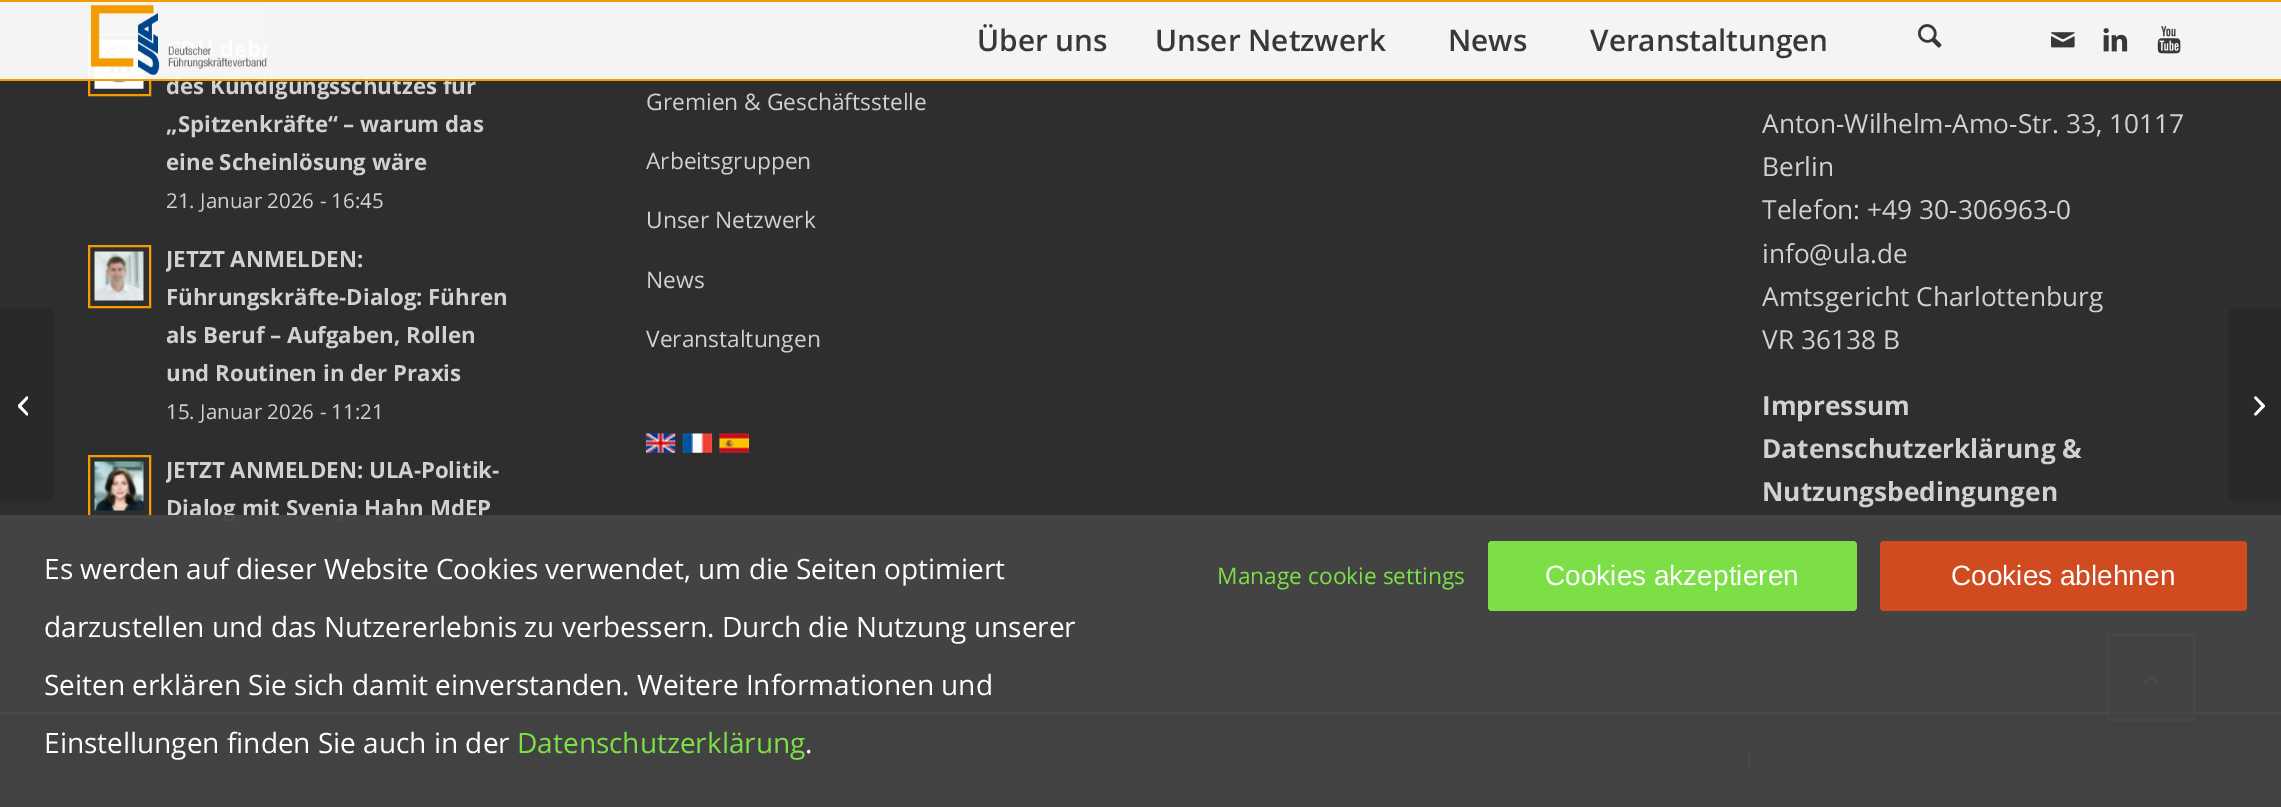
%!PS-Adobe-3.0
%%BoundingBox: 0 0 2281 807
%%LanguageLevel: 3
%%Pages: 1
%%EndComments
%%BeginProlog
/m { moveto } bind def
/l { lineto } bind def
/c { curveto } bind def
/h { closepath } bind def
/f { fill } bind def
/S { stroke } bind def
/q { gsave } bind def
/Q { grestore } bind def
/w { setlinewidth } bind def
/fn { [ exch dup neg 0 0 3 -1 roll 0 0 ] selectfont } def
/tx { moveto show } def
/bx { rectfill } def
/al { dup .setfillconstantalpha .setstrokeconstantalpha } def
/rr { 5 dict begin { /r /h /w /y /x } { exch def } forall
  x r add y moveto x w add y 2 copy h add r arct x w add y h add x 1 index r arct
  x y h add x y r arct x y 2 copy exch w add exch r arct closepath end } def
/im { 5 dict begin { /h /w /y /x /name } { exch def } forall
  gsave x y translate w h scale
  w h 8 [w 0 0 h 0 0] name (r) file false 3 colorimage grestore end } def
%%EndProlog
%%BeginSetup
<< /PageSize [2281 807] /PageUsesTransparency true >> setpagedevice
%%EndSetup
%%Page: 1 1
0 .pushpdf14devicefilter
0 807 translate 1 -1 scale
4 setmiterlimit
0.18 setgray
0 0 2281 807 bx
0.961 0.608 0 setrgbcolor
2 w
89 34 61 61 rectstroke
(image6.raw) 94 39 50 50 im
/OpenSans-Bold 22.25 fn
0.82 setgray
(des Kündigungsschutzes für) 166 94 tx
0.95 al
1 setgray
0 2 2281 77 bx
1 al
0.961 0.608 0 setrgbcolor
0 0 2281 2 bx
0 79 2281 2 bx
(image0.raw) 91 5 176 71 im
/OpenSans-SemiBold 29.75 fn
0.22 setgray
(Über uns) 977 51 tx
(Unser Netzwerk) 1155 51 tx
(News) 1448 51 tx
(Veranstaltungen) 1590 51 tx
(image1.raw) 1918 24 24 24 im
(image2.raw) 2051 32 24 16 im
(image3.raw) 2103 28 25 24 im
(image4.raw) 2157 26 24 28 im
0.161 setgray
0 308 m 47 308 l 51 308 54 311 54 315 c 54 494 l 54 498 51 501 47 501 c 0 501 l h f
(image5.raw) 18 396 10 20 im
/OpenSans-Bold 22.25 fn
0.82 setgray
(„Spitzenkräfte“ – warum das) 166 132 tx
(eine Scheinlösung wäre) 166 170 tx
/OpenSans-Regular 20.5 fn
(21. Januar 2026 - 16:45) 166 208 tx
0.961 0.608 0 setrgbcolor
89 246 61 61 rectstroke
(image7.raw) 94 251 50 50 im
q
166 242 354 189 rectclip
/OpenSans-Bold 22.25 fn
0.82 setgray
(JETZT ANMELDEN:) 166 267 tx
Q
/OpenSans-Bold 22.25 fn
0.82 setgray
(Führungskräfte-Dialog: Führen) 166 305 tx
(als Beruf – Aufgaben, Rollen) 166 343 tx
(und Routinen in der Praxis) 166 381 tx
/OpenSans-Regular 20.5 fn
(15. Januar 2026 - 11:21) 166 419 tx
0.961 0.608 0 setrgbcolor
89 456 61 61 rectstroke
(image8.raw) 94 461 50 50 im
q
166 452 354 152 rectclip
/OpenSans-Bold 22.25 fn
0.82 setgray
(JETZT ANMELDEN: ULA-Politik-) 166 478 tx
Q
/OpenSans-Bold 22.25 fn
0.82 setgray
(Dialog mit Svenja Hahn MdEP) 166 516 tx
/OpenSans-Regular 22.75 fn
(Gremien & Geschäftsstelle) 646 110 tx
(Arbeitsgruppen) 646 169 tx
(Unser Netzwerk) 646 228 tx
(News) 646 288 tx
(Veranstaltungen) 646 347 tx
(image9.raw) 645 433 31 20 im
(image10.raw) 682 433 31 20 im
(image11.raw) 719 433 30 20 im
/OpenSans-Regular 26.25 fn
(Anton-Wilhelm-Amo-Str. 33, 10117) 1762 133 tx
(Berlin) 1762 176 tx
(Telefon: +49 30-306963-0) 1762 219 tx
(info@ula.de) 1762 263 tx
(Amtsgericht Charlottenburg) 1762 306 tx
(VR 36138 B) 1762 349 tx
/OpenSans-Bold 26.25 fn
(Impressum) 1762 415 tx
(Datenschutzerklärung &) 1762 458 tx
(Nutzungsbedingungen) 1762 501 tx
0.078 setgray
0 714 2281 93 bx
0.961 0.608 0 setrgbcolor
0 712 2281 2 bx
1748 751 2 17 bx
0.161 setgray
2235 308 m 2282 308 l 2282 501 l 2235 501 l 2231 501 2228 498 2228 494 c 2228 315 l 2228 311 2231 308 2235 308 c h f
(image12.raw) 2254 396 11 20 im
0.7 al
0.078 setgray
2107 634 88 87 4 rr f
0.961 0.608 0 setrgbcolor
2108 635 86 85 3 rr S
1 al
(image13.raw) 2144 675 14 10 im
0.95 al
0.267 setgray
0 515 2281 292 bx
/OpenSans-Regular 28 fn
1 al
1 setgray
(Es werden auf dieser Website Cookies verwendet, um die Seiten optimiert) 44 579 tx
(darzustellen und das Nutzererlebnis zu verbessern. Durch die Nutzung unserer) 44 637 tx
(Seiten erklären Sie sich damit einverstanden. Weitere Informationen und) 44 695 tx
(Einstellungen finden Sie auch in der) 44 753 tx
0.49 0.878 0.278 setrgbcolor
(Datenschutzerklärung) 517 753 tx
1 setgray
(.) 805 753 tx
/OpenSans-Regular 22.75 fn
0.49 0.878 0.278 setrgbcolor
(Manage cookie settings) 1217 584 tx
0.486 0.875 0.275 setrgbcolor
1488 541 369 70 4 rr f
/LiberationSans-Regular 28 fn
1 setgray
(Cookies akzeptieren) 1545 585 tx
0.816 0.298 0.125 setrgbcolor
1880 541 367 70 4 rr f
1 setgray
(Cookies ablehnen) 1951 585 tx
.poppdf14devicefilter showpage
%%EOF
